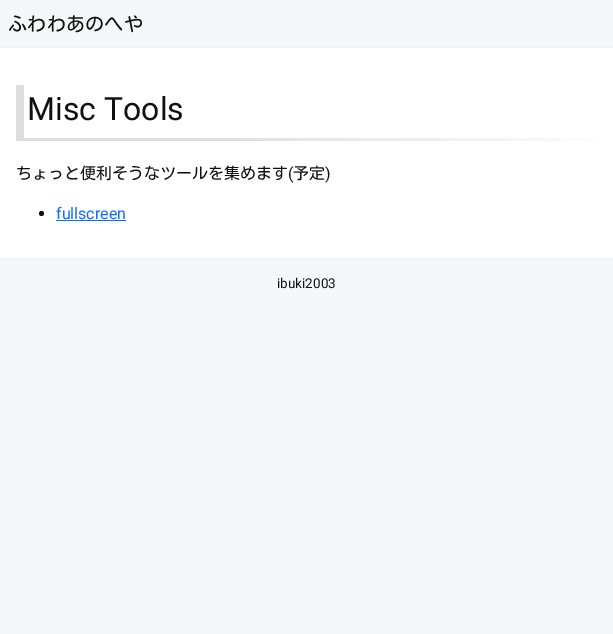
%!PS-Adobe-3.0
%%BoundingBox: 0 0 613 634
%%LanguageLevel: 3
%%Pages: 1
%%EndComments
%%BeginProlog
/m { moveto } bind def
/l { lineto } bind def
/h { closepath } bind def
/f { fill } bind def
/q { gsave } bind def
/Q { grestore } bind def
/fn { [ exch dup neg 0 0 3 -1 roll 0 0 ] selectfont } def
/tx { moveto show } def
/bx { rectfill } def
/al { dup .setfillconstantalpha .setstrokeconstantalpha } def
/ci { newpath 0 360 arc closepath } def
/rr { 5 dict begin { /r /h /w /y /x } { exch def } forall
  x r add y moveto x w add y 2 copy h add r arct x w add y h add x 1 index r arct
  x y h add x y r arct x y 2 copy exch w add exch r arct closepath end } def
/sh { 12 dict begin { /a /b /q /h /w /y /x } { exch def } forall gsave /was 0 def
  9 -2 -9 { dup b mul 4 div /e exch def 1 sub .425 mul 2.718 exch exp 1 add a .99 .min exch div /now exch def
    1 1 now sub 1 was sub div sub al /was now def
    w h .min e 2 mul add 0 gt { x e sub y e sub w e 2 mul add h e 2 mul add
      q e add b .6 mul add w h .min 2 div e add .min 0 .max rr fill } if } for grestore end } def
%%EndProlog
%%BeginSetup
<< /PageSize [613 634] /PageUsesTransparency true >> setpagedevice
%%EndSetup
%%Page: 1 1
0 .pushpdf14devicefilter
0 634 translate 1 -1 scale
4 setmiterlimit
0.961 0.973 0.98 setrgbcolor
0 0 613 634 bx
/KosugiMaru-Regular 19.25 fn
0.067 setgray
(ふわわあのへや) 8 31 tx
0.059 0.039 0.02 setrgbcolor
0 48 613 210 0 2.5 0.05 sh
1 setgray
0 48 613 210 bx
0.867 setgray
16 85 8 56 bx
/Roboto-Regular 32 fn
0.067 setgray
(Misc Tools) 27 120 tx
q 24 138 m 594 138 l 594 141 l 24 141 l h clip newpath
<< /ShadingType 2 /ColorSpace /DeviceRGB /Coords [24 140 594 139] /Extend [true true] /Function << /FunctionType 3 /Domain [0 1] /Functions [<< /FunctionType 2 /Domain [0 1] /C0 [0.867 0.867 0.867] /C1 [0.867 0.867 0.867] /N 1 >> << /FunctionType 2 /Domain [0 1] /C0 [0.867 0.867 0.867] /C1 [0.988 0.988 0.988] /N 1 >>] /Bounds [0.3] /Encode [0 1 0 1] >> >> shfill Q
/KosugiMaru-Regular 16 fn
(ちょっと便利そうなツールを集めます) 16 179 tx
/Roboto-Regular 16 fn
(\() 288 179 tx
/KosugiMaru-Regular 16 fn
(予定) 293 179 tx
/Roboto-Regular 16 fn
(\)) 325 179 tx
41.5 213.5 2.5 ci f
0.051 0.431 0.992 setrgbcolor
(fullscreen) 56 219 tx
56 220 70 1 bx
/Roboto-Regular 13.5 fn
0.067 setgray
(ibuki2003) 277 288 tx
.poppdf14devicefilter showpage
%%EOF
